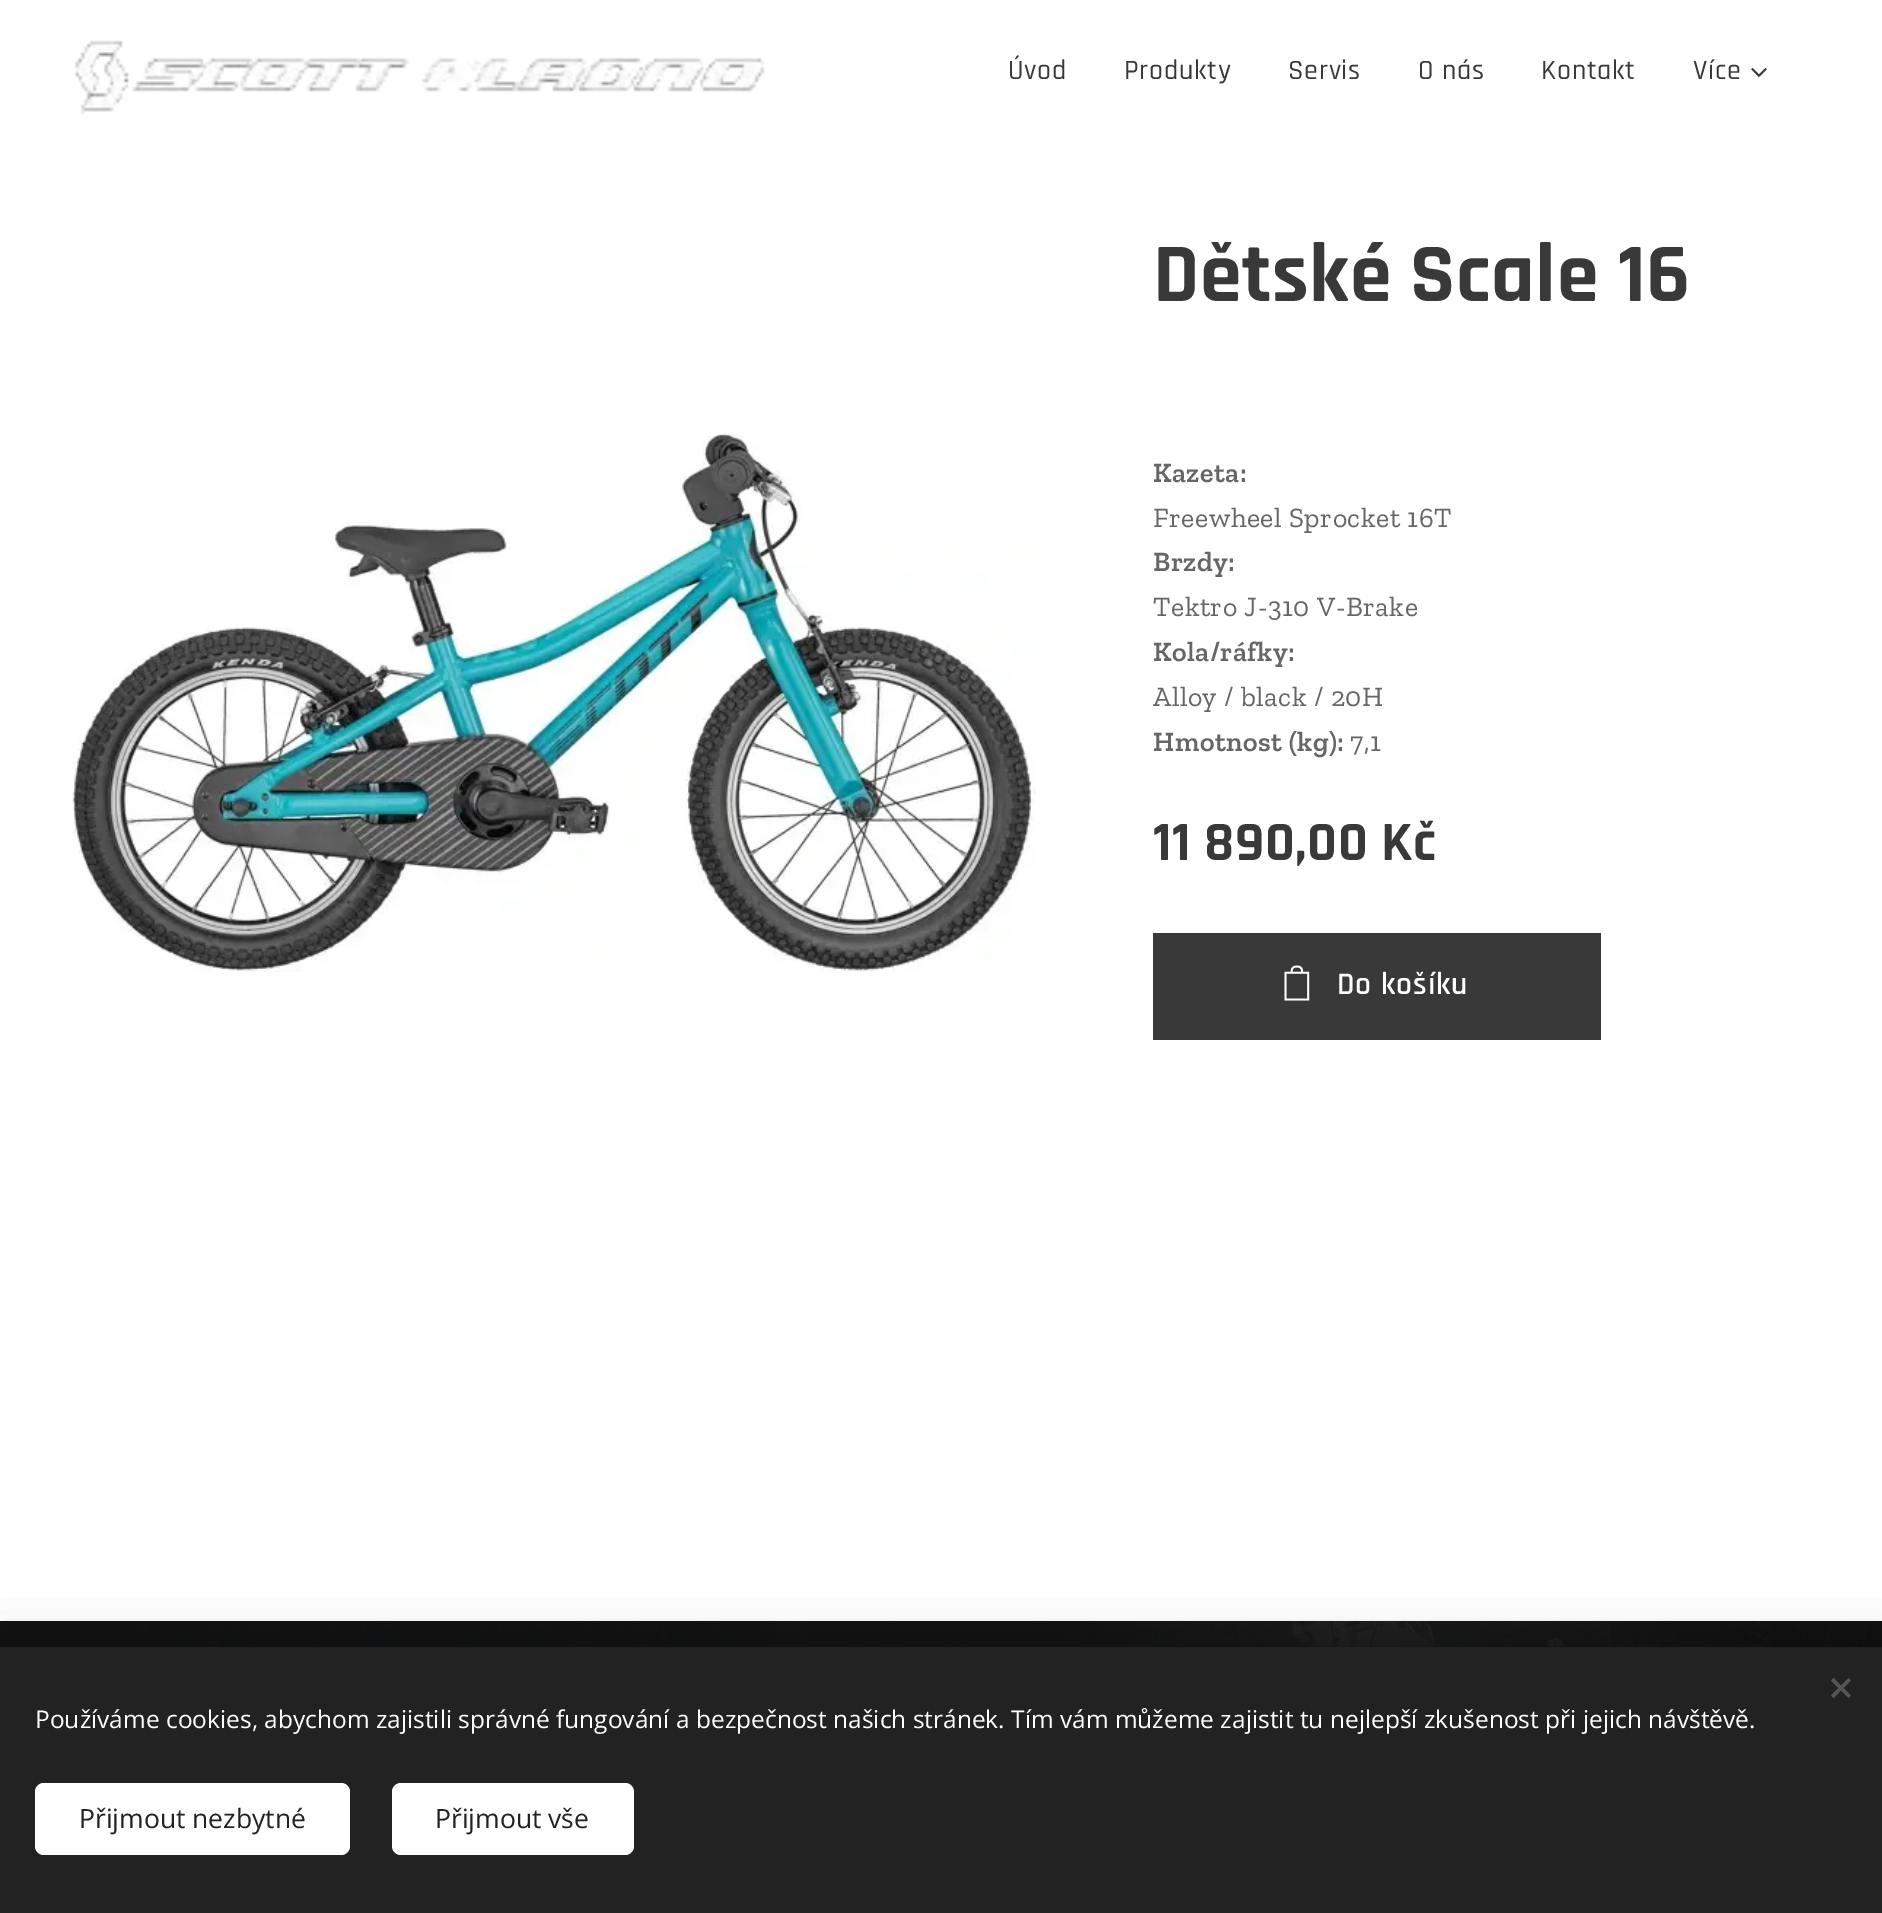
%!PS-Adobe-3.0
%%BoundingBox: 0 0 1882 1913
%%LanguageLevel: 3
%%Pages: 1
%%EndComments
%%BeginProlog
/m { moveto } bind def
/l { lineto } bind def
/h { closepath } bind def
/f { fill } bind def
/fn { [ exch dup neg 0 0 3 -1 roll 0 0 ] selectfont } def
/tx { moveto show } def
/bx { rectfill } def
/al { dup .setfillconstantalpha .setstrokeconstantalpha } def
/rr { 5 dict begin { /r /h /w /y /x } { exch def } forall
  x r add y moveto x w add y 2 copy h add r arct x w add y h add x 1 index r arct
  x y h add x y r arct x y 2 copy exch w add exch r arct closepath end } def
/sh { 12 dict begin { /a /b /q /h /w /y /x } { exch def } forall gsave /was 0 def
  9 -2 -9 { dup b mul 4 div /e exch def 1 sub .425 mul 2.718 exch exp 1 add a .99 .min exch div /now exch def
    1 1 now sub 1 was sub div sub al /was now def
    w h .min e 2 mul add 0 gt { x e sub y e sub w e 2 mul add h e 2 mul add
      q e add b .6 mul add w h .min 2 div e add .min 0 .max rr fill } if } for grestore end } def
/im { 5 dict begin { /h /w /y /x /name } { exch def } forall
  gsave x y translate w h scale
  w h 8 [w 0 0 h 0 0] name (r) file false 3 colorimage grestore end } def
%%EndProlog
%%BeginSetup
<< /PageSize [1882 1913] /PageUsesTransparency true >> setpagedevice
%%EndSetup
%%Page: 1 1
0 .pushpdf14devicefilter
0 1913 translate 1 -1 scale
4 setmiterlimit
1 setgray
0 0 1882 1913 bx
(image0.raw) 74 40 691 74 im
/Rajdhani-Medium 28 fn
0.224 setgray
1008 79 m 0.75 0 (Úvod) ashow
1124 79 m 0.75 0 (Produkty) ashow
1288 79 m 0.75 0 (Servis) ashow
1418 79 m 0.75 0 (O nás) ashow
1541 79 m 0.75 0 (Kontakt) ashow
1693 79 m 0.75 0 (Více) ashow
(image1.raw) 1751 68 16 9 im
/Rajdhani-Bold 84 fn
1153 301 m 0.5 0 (Dětské Scale 16) ashow
(image2.raw) 72 433 964 539 im
/ZillaSlab-SemiBold 28 fn
0.4 setgray
1153 482 m 0.5 0 (Kazeta:) ashow
/ZillaSlab-Regular 28 fn
1153 527 m 0.5 0 (Freewheel Sprocket 16T) ashow
/ZillaSlab-SemiBold 28 fn
1153 571 m 0.5 0 (Brzdy:) ashow
/ZillaSlab-Regular 28 fn
1153 616 m 0.5 0 (Tektro J-310 V-Brake) ashow
/ZillaSlab-SemiBold 28 fn
1153 661 m 0.5 0 (Kola/ráfky:) ashow
/ZillaSlab-Regular 28 fn
1153 706 m 0.5 0 (Alloy / black / 20H) ashow
/ZillaSlab-SemiBold 28 fn
1153 751 m 0.5 0 (Hmotnost \(kg\):) ashow
/ZillaSlab-Regular 28 fn
1350 751 m 0.5 0 (7,1) ashow
/Rajdhani-Bold 56 fn
0.224 setgray
1153 860 m 0.5 0 (11 890,00 Kč) ashow
1153 933 448 107 bx
(image3.raw) 1284 965 26 36 im
/Rajdhani-SemiBold 31.5 fn
1 setgray
1337 994 m 1 0 (Do košíku) ashow
(image4.raw) 0 1621 1882 26 im
0 setgray
0 1647 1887 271 0 22 0.33 sh
0.133 setgray
0 1647 1882 266 bx
0.333 setgray
1831 1695.5 m 1848.5 1678 l 1851 1680.5 l 1833.5 1698 l h f
1833.5 1678 m 1851 1695.5 l 1848.5 1698 l 1831 1680.5 l h f
/OpenSans-Regular 24.5 fn
1 setgray
(Používáme cookies, abychom zajistili správné fungování a bezpečnost našich stránek. Tím vám můžeme zajistit tu nejlepší zkušenost při jejich návštěvě.) 35 1728 tx
35 1783 315 72 9 rr f
/OpenSans-Regular 26.5 fn
0.133 setgray
(Přijmout nezbytné) 79 1828 tx
1 setgray
392 1783 242 72 9 rr f
0.133 setgray
(Přijmout vše) 435 1828 tx
.poppdf14devicefilter showpage
%%EOF
